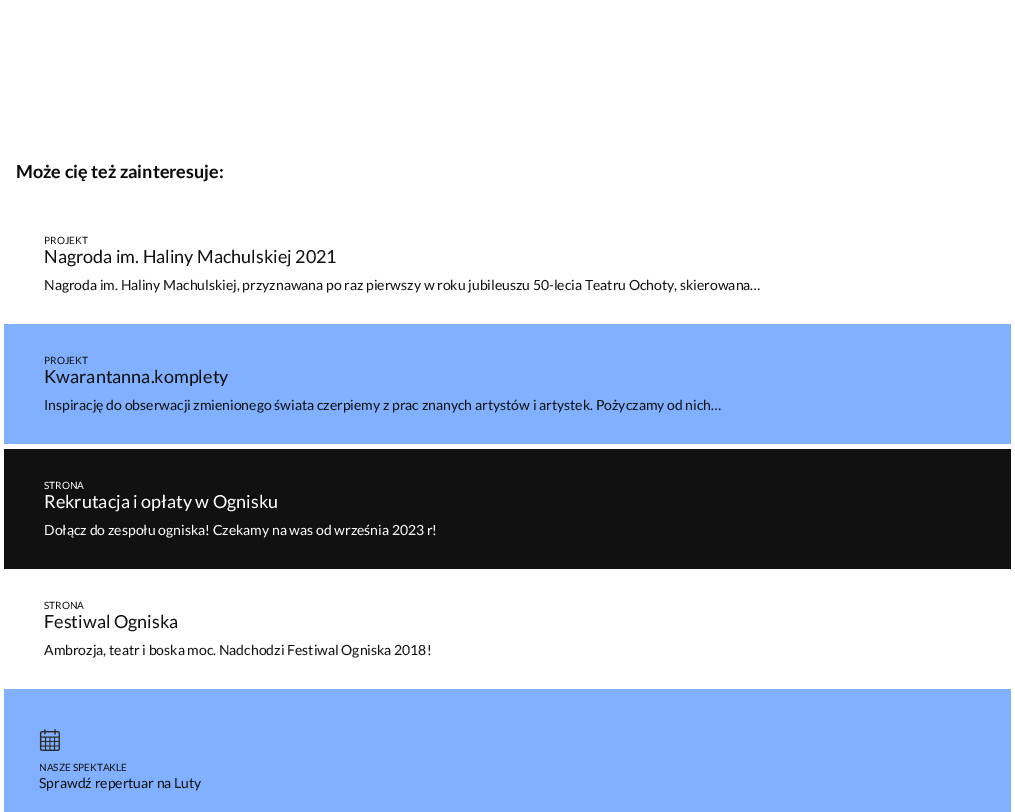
%!PS-Adobe-3.0
%%BoundingBox: 0 0 1015 812
%%LanguageLevel: 3
%%Pages: 1
%%EndComments
%%BeginProlog
/fn { [ exch dup neg 0 0 3 -1 roll 0 0 ] selectfont } def
/tx { moveto show } def
/bx { rectfill } def
/im { 5 dict begin { /h /w /y /x /name } { exch def } forall
  gsave x y translate w h scale
  w h 8 [w 0 0 h 0 0] name (r) file false 3 colorimage grestore end } def
%%EndProlog
%%BeginSetup
<< /PageSize [1015 812] >> setpagedevice
%%EndSetup
%%Page: 1 1
0 812 translate 1 -1 scale
4 setmiterlimit
1 setgray
0 0 1015 812 bx
/Lato-Bold 18 fn
0.039 setgray
(Może cię też zainteresuje:) 16 178 tx
/Lato-Regular 10 fn
0.067 setgray
(PROJEKT) 44 244 tx
/Lato-Regular 18 fn
(Nagroda im. Haliny Machulskiej 2021) 44 263 tx
/Lato-Regular 14 fn
(Nagroda im. Haliny Machulskiej, przyznawana po raz pierwszy w roku jubileuszu 50-lecia Teatru Ochoty, skierowana…) 44 290 tx
0.502 0.69 1 setrgbcolor
4 324 1007 120 bx
/Lato-Regular 10 fn
0.067 setgray
(PROJEKT) 44 364 tx
/Lato-Regular 18 fn
(Kwarantanna.komplety) 44 383 tx
/Lato-Regular 14 fn
(Inspirację do obserwacji zmienionego świata czerpiemy z prac znanych artystów i artystek. Pożyczamy od nich…) 44 410 tx
4 449 1007 120 bx
/Lato-Regular 10 fn
1 setgray
(STRONA) 44 489 tx
/Lato-Regular 18 fn
(Rekrutacja i opłaty w Ognisku) 44 508 tx
/Lato-Regular 14 fn
(Dołącz do zespołu ogniska! Czekamy na was od września 2023 r!) 44 535 tx
/Lato-Regular 10 fn
0.067 setgray
(STRONA) 44 609 tx
/Lato-Regular 18 fn
(Festiwal Ogniska) 44 628 tx
/Lato-Regular 14 fn
(Ambrozja, teatr i boska moc. Nadchodzi Festiwal Ogniska 2018!) 44 655 tx
0.502 0.69 1 setrgbcolor
4 689 1007 123 bx
(image0.raw) 39 729 21 22 im
/Lato-Regular 10 fn
0.067 setgray
(NASZE SPEKTAKLE) 39 771 tx
/Lato-Regular 14 fn
(Sprawdź repertuar na Luty) 39 788 tx
showpage
%%EOF
